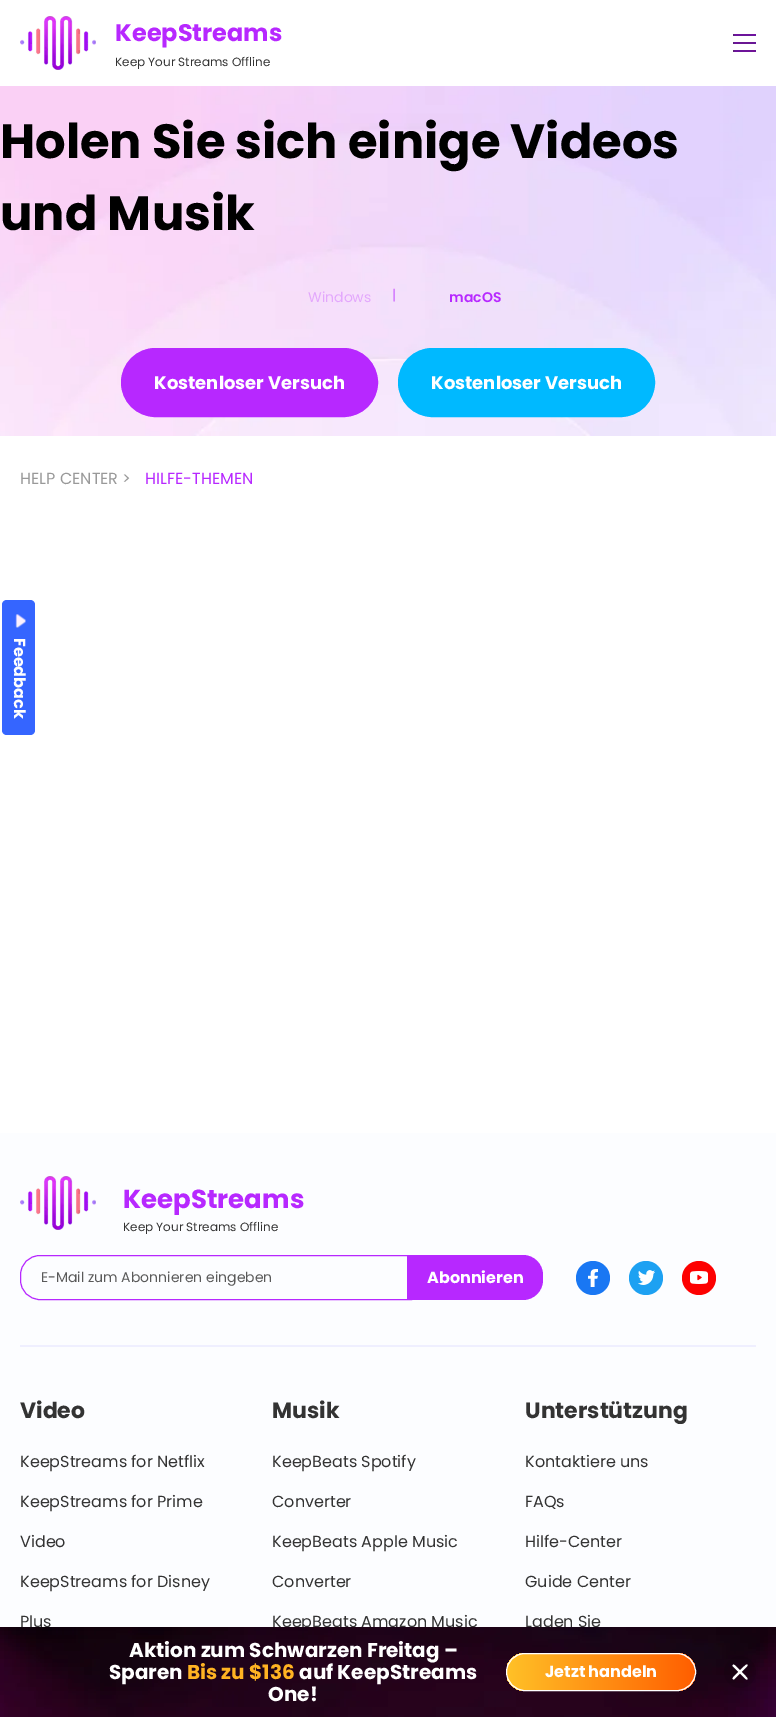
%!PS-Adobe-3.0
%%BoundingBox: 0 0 776 1717
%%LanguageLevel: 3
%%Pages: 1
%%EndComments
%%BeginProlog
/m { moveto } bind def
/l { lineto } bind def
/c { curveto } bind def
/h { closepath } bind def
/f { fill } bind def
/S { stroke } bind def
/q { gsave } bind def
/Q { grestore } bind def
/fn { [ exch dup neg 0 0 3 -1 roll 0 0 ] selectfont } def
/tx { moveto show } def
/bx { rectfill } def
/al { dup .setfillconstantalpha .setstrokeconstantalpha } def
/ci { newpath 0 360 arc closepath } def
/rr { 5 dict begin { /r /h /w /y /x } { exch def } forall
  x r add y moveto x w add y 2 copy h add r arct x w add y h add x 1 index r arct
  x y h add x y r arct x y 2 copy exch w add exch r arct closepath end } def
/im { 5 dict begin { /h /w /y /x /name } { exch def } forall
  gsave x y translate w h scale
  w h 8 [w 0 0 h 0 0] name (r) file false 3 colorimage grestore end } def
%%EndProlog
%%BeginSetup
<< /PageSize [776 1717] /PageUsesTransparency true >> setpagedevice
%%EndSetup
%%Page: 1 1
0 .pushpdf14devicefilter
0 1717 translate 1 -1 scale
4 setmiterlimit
1 setgray
0 0 776 1717 bx
(image0.raw) 20 16 76 54 im
/Poppins-Bold 24 fn
0.718 0.157 1 setrgbcolor
(KeepStreams) 115 41 tx
/Poppins-Regular 12 fn
0.2 setgray
(Keep Your Streams Offline) 115 66 tx
(image1.raw) 733 34 23 18 im
0.988 0.992 1 setrgbcolor
0 1133 776 494 bx
/Poppins-Regular 16 fn
0.2 setgray
(Plus) 20 1627 tx
(KeepBeats Amazon Music) 272 1627 tx
(Laden Sie) 525 1627 tx
(image2.raw) 0 1627 776 90 im
/Poppins-Bold 20 fn
1 setgray
(Aktion zum Schwarzen Freitag –) 129 1657 tx
(Sparen) 109 1679 tx
1 0.702 0.133 setrgbcolor
(Bis zu $136) 187 1679 tx
1 setgray
(auf KeepStreams) 299 1679 tx
(One!) 268 1701 tx
q
506 1653 190 38 19 rr clip newpath
q 507 1653 m 695 1653 l 695 1691 l 507 1691 l h clip newpath
<< /ShadingType 2 /ColorSpace /DeviceRGB /Coords [507 1672 695 1672] /Extend [true true] /Function << /FunctionType 2 /Domain [0 1] /C0 [1 0.757 0.153] /C1 [1 0.369 0] /N 1 >> >> shfill Q
Q
506.5 1653.5 189 37 18.5 rr S
/Poppins-Bold 16 fn
(Jetzt handeln) 545 1677 tx
0.1 al
0 setgray
740 1672 16 ci f
1 al
1 setgray
733 1677.5 m 734.5 1676 745.5 1664.5 746.5 1664.5 c 749 1664.5 746.5 1667 745 1668.5 c 734 1679.5 l 733.5 1679.5 732.5 1679 732.5 1678.5 c h f
734.5 1665 m 736 1666.5 747.5 1677.5 747.5 1678.5 c 747.5 1681 745 1678.5 743.5 1677 c 732.5 1666 l 732.5 1665.5 733 1664.5 733.5 1664.5 c h f
(image3.raw) 0 86 776 350 im
/Poppins-Bold 48 fn
0 setgray
(Holen Sie sich einige Videos) 0 158 tx
(und Musik) 0 230 tx
/Poppins-Regular 14 fn
0.89 0.659 0.988 setrgbcolor
(Windows) 308 302 tx
0.796 0.388 0.996 setrgbcolor
(|) 392 300 tx
/Poppins-SemiBold 14 fn
0.718 0.157 1 setrgbcolor
(macOS) 449 302 tx
121.5 348.5 256 68 34 rr q f Q
S
/Poppins-Bold 18 fn
1 setgray
(Kostenloser Versuch) 154 389 tx
0 0.725 1 setrgbcolor
398.5 348.5 256 68 34 rr q f Q
S
1 setgray
(Kostenloser Versuch) 431 389 tx
/Poppins-Regular 16 fn
0.6 setgray
(HELP CENTER >) 20 484 tx
0.718 0.157 1 setrgbcolor
(HILFE-THEMEN) 145 484 tx
0.208 0.396 1 setrgbcolor
35 605 m 35 730 l 35 733 33 735 30 735 c 7 735 l 4 735 2 733 2 730 c 2 605 l 2 602 4 600 7 600 c 30 600 l 33 600 35 602 35 605 c h f
(image4.raw) 15 614 11 14 im
/Poppins-Bold 16 fn
1 setgray
q 14 638 translate 90 rotate 0 0 m (Feedback) show Q
(image5.raw) 20 1176 76 54 im
/Poppins-Bold 26 fn
0.718 0.157 1 setrgbcolor
(KeepStreams) 123 1208 tx
/Poppins-Regular 12 fn
0.2 setgray
(Keep Your Streams Offline) 123 1231 tx
0.718 0.157 1 setrgbcolor
40 1255.5 m 411.5 1255.5 l 411.5 1299.5 l 40 1299.5 l 29 1299.5 20.5 1291 20.5 1280 c 20.5 1275 l 20.5 1264 29 1255.5 40 1255.5 c h S
/Poppins-Regular 14 fn
0.353 setgray
(E-Mail zum Abonnieren eingeben) 41 1282 tx
0.718 0.157 1 setrgbcolor
407 1255 m 523 1255 l 534 1255 543 1264 543 1275 c 543 1280 l 543 1291 534 1300 523 1300 c 407 1300 l h f
/Poppins-Bold 16 fn
1 setgray
(Abonnieren) 427 1283 tx
0.098 0.467 0.953 setrgbcolor
593 1278 17 ci f
(image6.raw) 588 1269 10 18 im
0.114 0.631 0.949 setrgbcolor
646 1278 17 ci f
(image7.raw) 638 1270 17 15 im
0.992 0.004 0.004 setrgbcolor
699 1278 17 ci f
(image8.raw) 690 1271 18 13 im
0.937 0.937 1 setrgbcolor
20 1345 736 2 bx
/Poppins-Bold 22 fn
0.2 setgray
(Video) 20 1418 tx
/Poppins-Regular 16 fn
(KeepStreams for Netflix) 20 1467 tx
(KeepStreams for Prime) 20 1507 tx
(Video) 20 1547 tx
(KeepStreams for Disney) 20 1587 tx
/Poppins-Bold 22 fn
(Musik) 272 1418 tx
/Poppins-Regular 16 fn
(KeepBeats Spotify) 272 1467 tx
(Converter) 272 1507 tx
(KeepBeats Apple Music) 272 1547 tx
(Converter) 272 1587 tx
/Poppins-Bold 22 fn
(Unterstützung) 525 1418 tx
/Poppins-Regular 16 fn
(Kontaktiere uns) 525 1467 tx
(FAQs) 525 1507 tx
(Hilfe-Center) 525 1547 tx
(Guide Center) 525 1587 tx
.poppdf14devicefilter showpage
%%EOF
